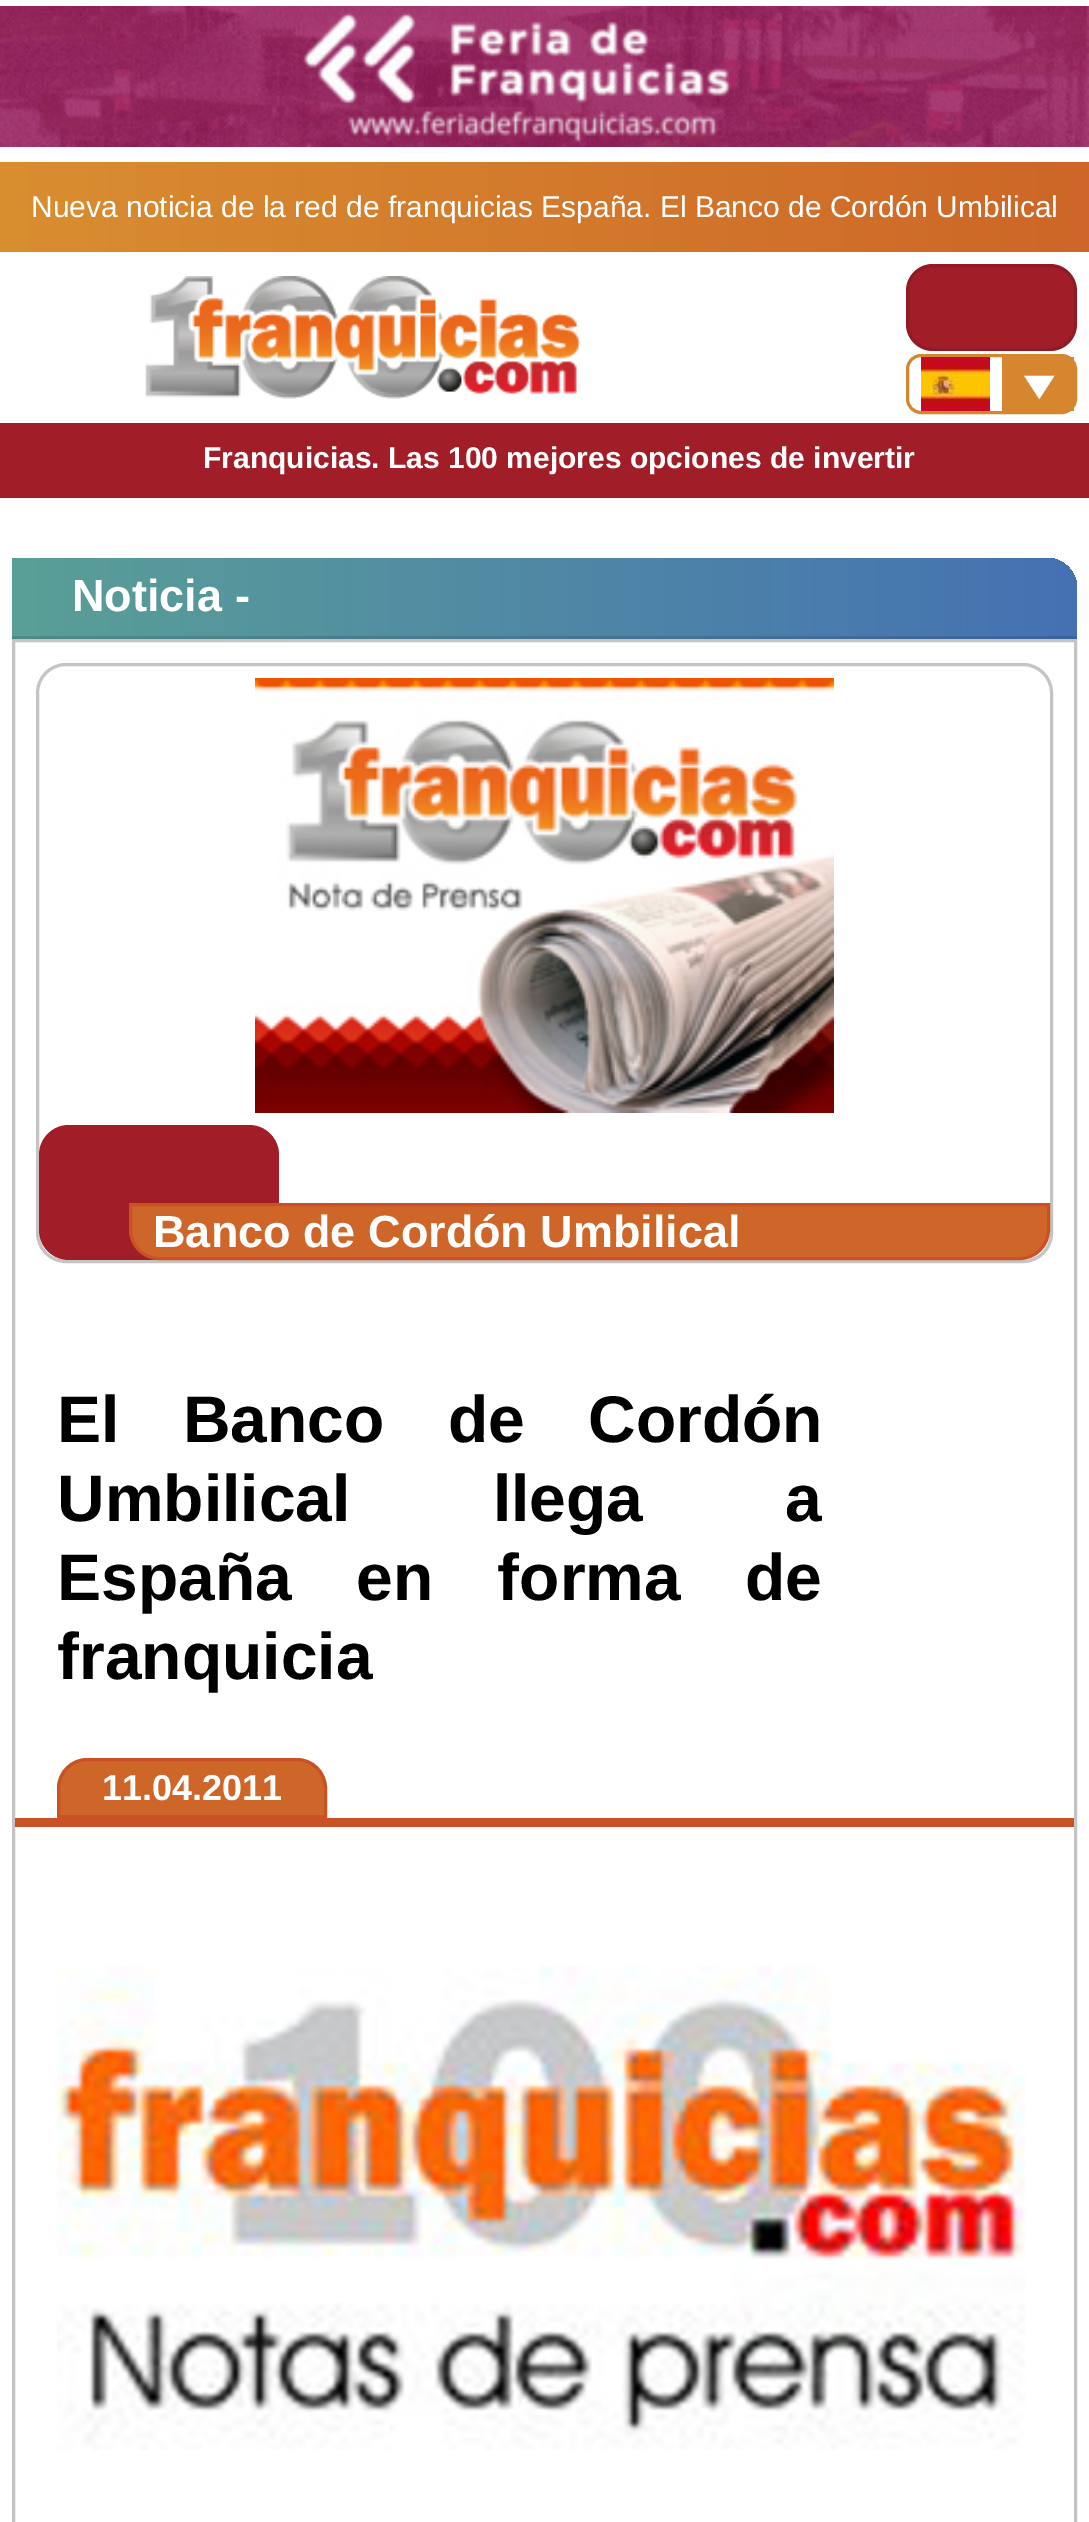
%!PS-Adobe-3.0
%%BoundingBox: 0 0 1089 2522
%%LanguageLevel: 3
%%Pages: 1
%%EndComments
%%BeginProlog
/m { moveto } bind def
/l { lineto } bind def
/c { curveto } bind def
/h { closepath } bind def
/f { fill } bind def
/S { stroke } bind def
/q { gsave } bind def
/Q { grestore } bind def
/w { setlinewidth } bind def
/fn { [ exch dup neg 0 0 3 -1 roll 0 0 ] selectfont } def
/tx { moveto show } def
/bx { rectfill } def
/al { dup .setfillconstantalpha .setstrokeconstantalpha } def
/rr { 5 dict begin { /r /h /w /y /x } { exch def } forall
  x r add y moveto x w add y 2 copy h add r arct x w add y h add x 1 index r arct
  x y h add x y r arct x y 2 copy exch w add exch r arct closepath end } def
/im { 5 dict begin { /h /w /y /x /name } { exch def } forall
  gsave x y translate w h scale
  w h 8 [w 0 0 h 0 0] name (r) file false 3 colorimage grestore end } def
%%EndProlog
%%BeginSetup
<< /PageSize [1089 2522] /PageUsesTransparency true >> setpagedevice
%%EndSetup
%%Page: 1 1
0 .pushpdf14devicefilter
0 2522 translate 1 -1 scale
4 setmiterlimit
1 setgray
0 0 1089 2522 bx
(image0.raw) 0 6 1089 141 im
(image1.raw) 145 276 436 123 im
0.631 0.118 0.157 setrgbcolor
906 264 171 87 27 rr f
0.1 al
0 setgray
3 w
907.5 265.5 168 84 25.5 rr S
1 al
0.839 0.525 0.18 setrgbcolor
907.5 355.5 168 57 13.5 rr S
(image2.raw) 921 357 69 54 im
(image3.raw) 1002 357 72 54 im
q 0 162 m 1089 162 l 1089 252 l 0 252 l h clip newpath
<< /ShadingType 2 /ColorSpace /DeviceRGB /Coords [0 207 1089 207] /Extend [true true] /Function << /FunctionType 2 /Domain [0 1] /C0 [0.851 0.557 0.188] /C1 [0.804 0.4 0.157] /N 1 >> >> shfill Q
/LiberationSans-Regular 30 fn
1 setgray
(Nueva noticia de la red de franquicias España. El Banco de Cordón Umbilical) 31 217 tx
0.631 0.118 0.157 setrgbcolor
0 423 1089 75 bx
/LiberationSans-Bold 30 fn
1 setgray
(Franquicias. Las 100 mejores opciones de invertir) 203 468 tx
q 12 558 m 1047 558 l 1063.5 558 1077 571.5 1077 588 c 1077 639 l 12 639 l h clip newpath
<< /ShadingType 2 /ColorSpace /DeviceRGB /Coords [1077 597 12 597] /Extend [true true] /Function << /FunctionType 2 /Domain [0 1] /C0 [0.271 0.443 0.702] /C1 [0.353 0.624 0.592] /N 1 >> >> shfill Q
q 12 636 m 1077 636 l 1077 639 l 12 639 l h clip newpath
<< /ShadingType 2 /ColorSpace /DeviceRGB /Coords [1077 597 12 597] /Extend [true true] /Function << /FunctionType 2 /Domain [0 1] /C0 [0.239 0.388 0.62] /C1 [0.31 0.549 0.522] /N 1 >> >> shfill Q
/LiberationSans-Bold 45 fn
(Noticia -) 72 611 tx
0.769 setgray
13.5 640.5 1062 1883 rectstroke
37.5 664.5 1014 597 28.5 rr S
(image4.raw) 255 678 579 435 im
0.631 0.118 0.157 setrgbcolor
39 1125 240 135 30 rr f
0.804 0.4 0.157 setrgbcolor
130.5 1204.5 m 1048.5 1204.5 l 1048.5 1230 l 1048.5 1245.5 1035.5 1258.5 1020 1258.5 c 159 1258.5 l 143.5 1258.5 130.5 1245.5 130.5 1230 c h q f Q
0.792 0.314 0.149 setrgbcolor
S
1 setgray
(Banco de Cordón Umbilical) 153 1247 tx
/LiberationSans-Bold 66 fn
0 setgray
57 1442 m 45 0 32 (El Banco de Cordón) widthshow
57 1521 m 124 0 32 (Umbilical llega a) widthshow
57 1600 m 46 0 32 (España en forma de) widthshow
(franquicia) 57 1679 tx
0.792 0.314 0.149 setrgbcolor
15 1818 1059 9 bx
0.804 0.4 0.157 setrgbcolor
87 1759.5 m 297 1759.5 l 312.5 1759.5 325.5 1772.5 325.5 1788 c 325.5 1816.5 l 58.5 1816.5 l 58.5 1788 l 58.5 1772.5 71.5 1759.5 87 1759.5 c h q f Q
0.792 0.314 0.149 setrgbcolor
S
/LiberationSans-Bold 36 fn
1 setgray
(11.04.2011) 102 1800 tx
(image5.raw) 57 1965 969 485 im
.poppdf14devicefilter showpage
%%EOF
